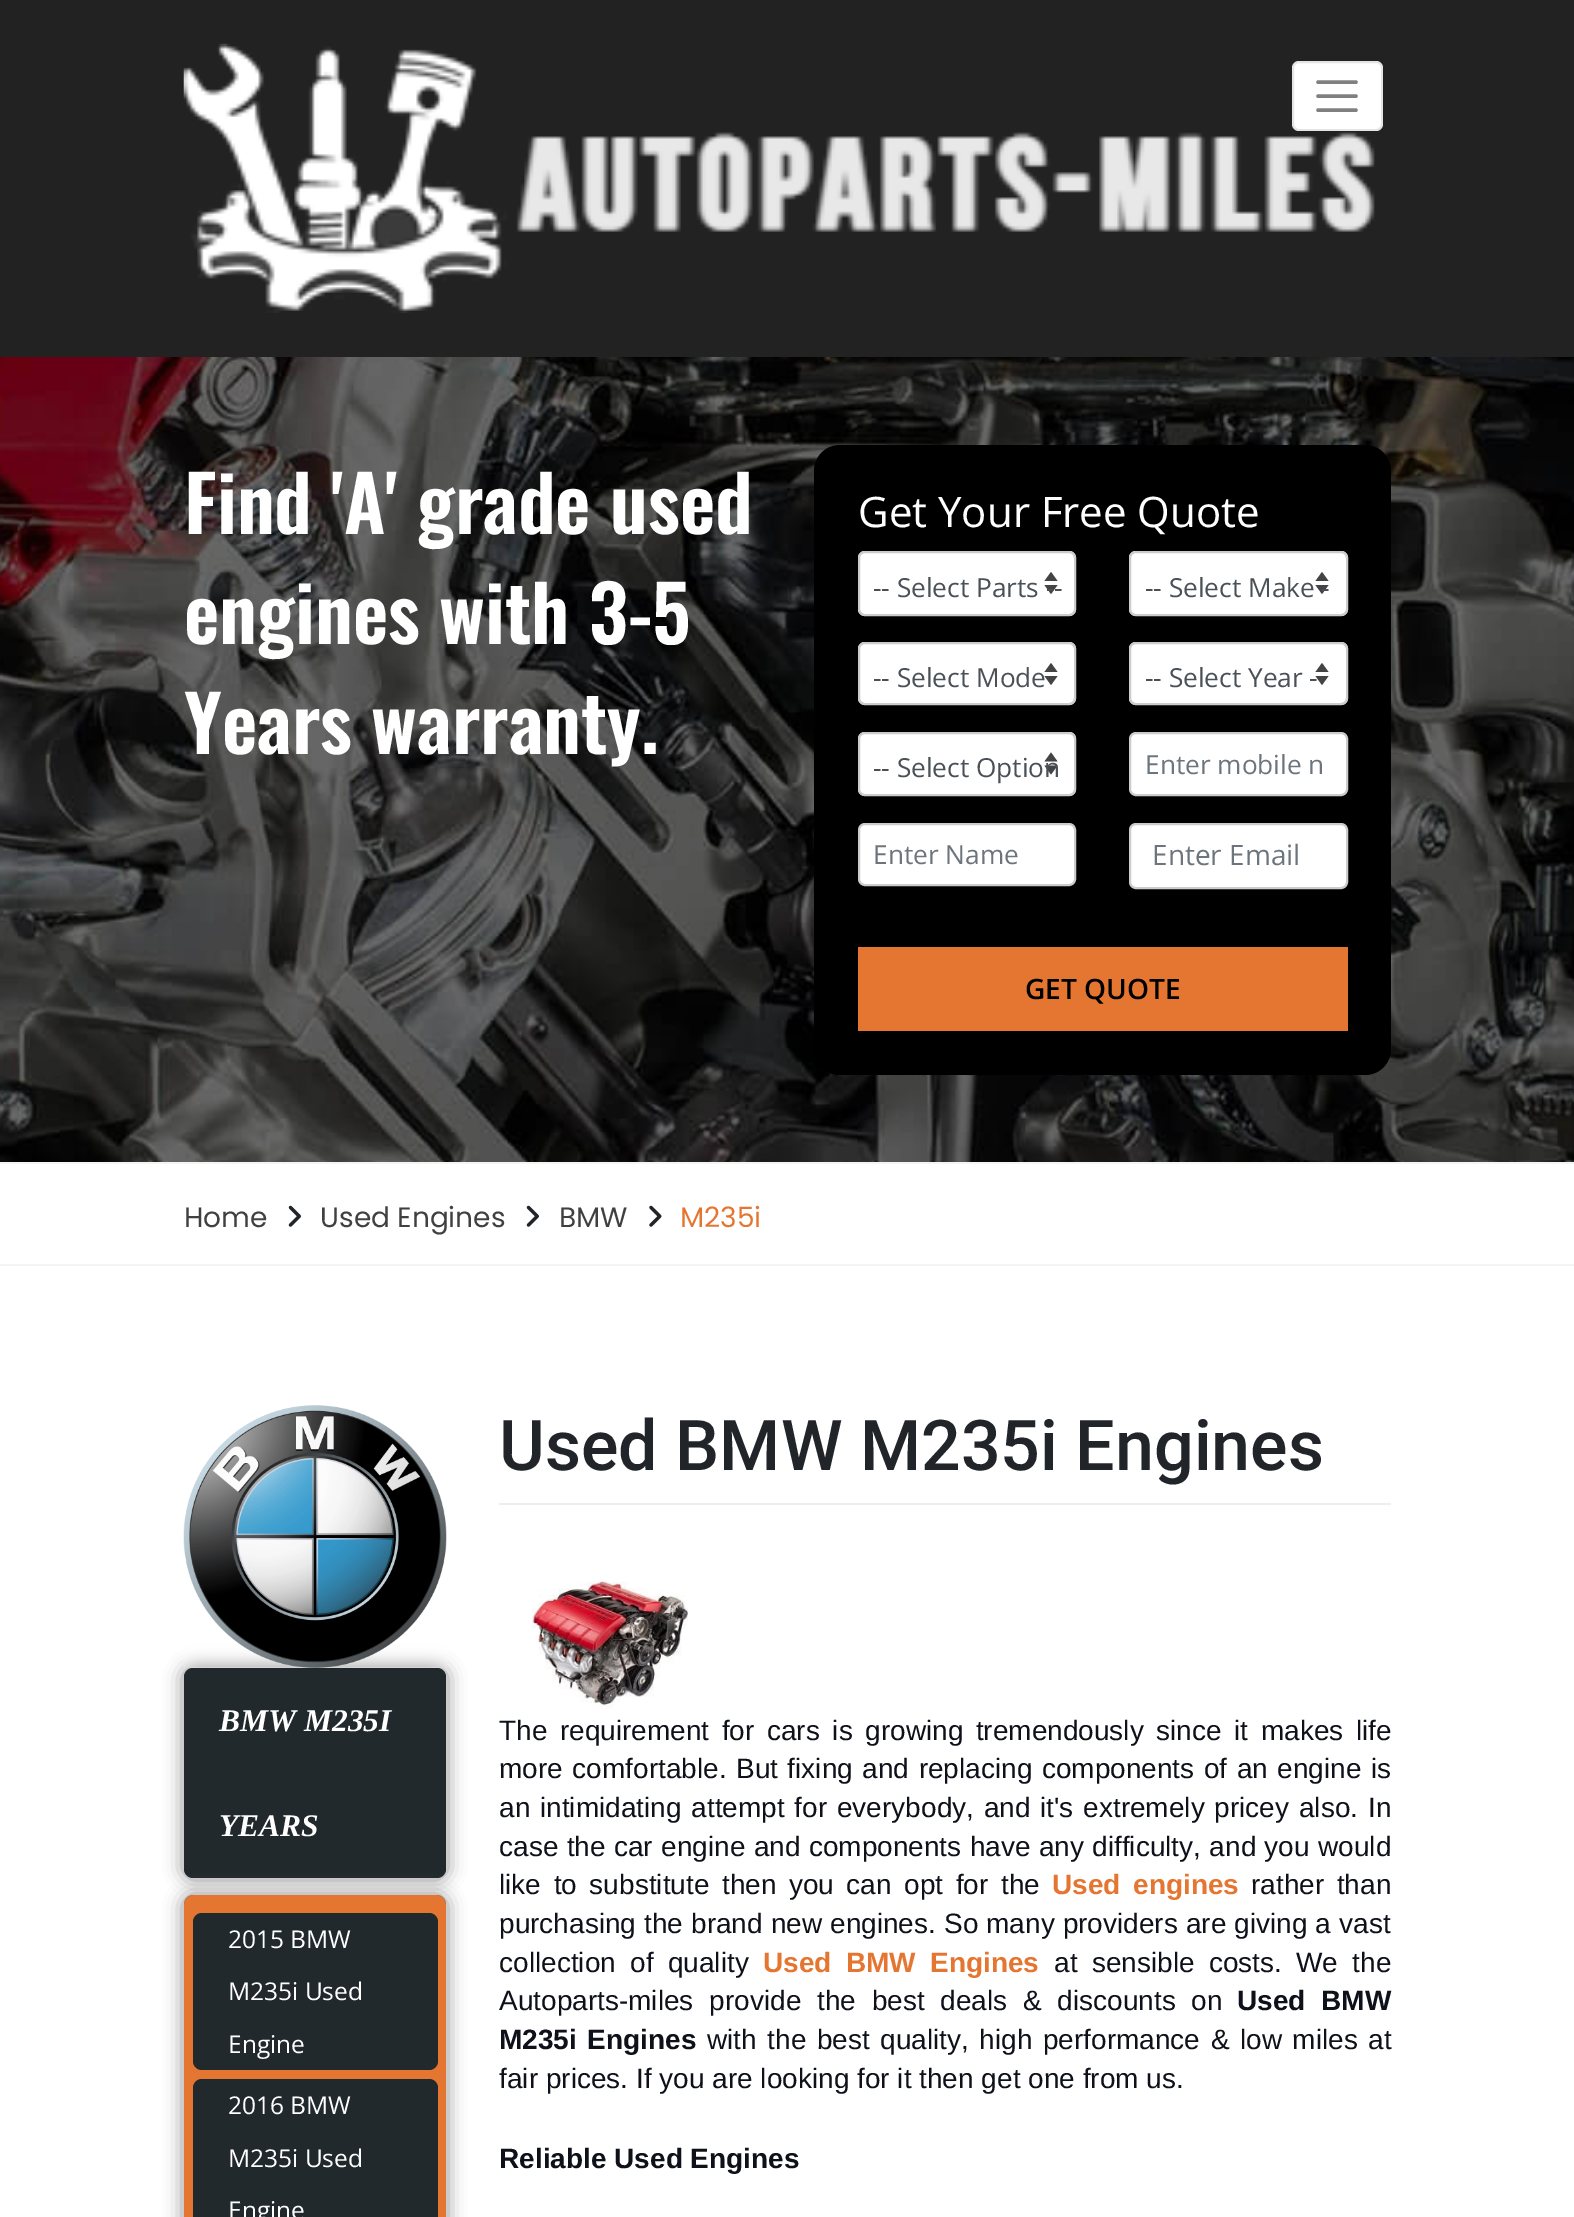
%!PS-Adobe-3.0
%%BoundingBox: 0 0 1574 2217
%%LanguageLevel: 3
%%Pages: 1
%%EndComments
%%BeginProlog
/m { moveto } bind def
/l { lineto } bind def
/c { curveto } bind def
/h { closepath } bind def
/f { fill } bind def
/S { stroke } bind def
/q { gsave } bind def
/Q { grestore } bind def
/w { setlinewidth } bind def
/fn { [ exch dup neg 0 0 3 -1 roll 0 0 ] selectfont } def
/tx { moveto show } def
/bx { rectfill } def
/al { dup .setfillconstantalpha .setstrokeconstantalpha } def
/rr { 5 dict begin { /r /h /w /y /x } { exch def } forall
  x r add y moveto x w add y 2 copy h add r arct x w add y h add x 1 index r arct
  x y h add x y r arct x y 2 copy exch w add exch r arct closepath end } def
/sh { 12 dict begin { /a /b /q /h /w /y /x } { exch def } forall gsave /was 0 def
  9 -2 -9 { dup b mul 4 div /e exch def 1 sub .425 mul 2.718 exch exp 1 add a .99 .min exch div /now exch def
    1 1 now sub 1 was sub div sub al /was now def
    w h .min e 2 mul add 0 gt { x e sub y e sub w e 2 mul add h e 2 mul add
      q e add b .6 mul add w h .min 2 div e add .min 0 .max rr fill } if } for grestore end } def
/im { 5 dict begin { /h /w /y /x /name } { exch def } forall
  gsave x y translate w h scale
  w h 8 [w 0 0 h 0 0] name (r) file false 3 colorimage grestore end } def
%%EndProlog
%%BeginSetup
<< /PageSize [1574 2217] /PageUsesTransparency true >> setpagedevice
%%EndSetup
%%Page: 1 1
0 .pushpdf14devicefilter
0 2217 translate 1 -1 scale
4 setmiterlimit
1 setgray
0 0 1574 2217 bx
0.133 setgray
0 0 1574 357 bx
(image0.raw) 183 43 1192 270 im
1 setgray
1292 61 91 70 7 rr f
0.1 al
0 setgray
2 w
1293 62 89 68 6 rr S
1 al
0.502 setgray
3.5 w
1 setlinecap
1318 82 m 1356 82 l 1318 96 m 1356 96 l 1318 110 m 1356 110 l S
(image1.raw) 0 357 1574 805 im
/Oswald-SemiBold 77 fn
1 setgray
(Find 'A' grade used) 184 534 tx
(engines with 3-5) 184 644 tx
(Years warranty.) 184 754 tx
0 setgray
814 445 577 630 26 rr f
/OpenSans-Regular 42 fn
1 setgray
(Get Your Free Quote) 858 527 tx
858 551 218 65 7 rr f
0.267 setgray
1044.5 581 m 1051 572 l 1057.5 581 l h 1057.5 585 m 1051 594 l 1044.5 585 l h f
0.8 setgray
2 w
0 setlinecap
859 552 216 63 6 rr S
/OpenSans-Regular 26.25 fn
0.286 0.314 0.341 setrgbcolor
(-- Select Parts --) 873 597 tx
1 setgray
1129 551 219 65 7 rr f
0.267 setgray
1315.5 581 m 1322 572 l 1328.5 581 l h 1328.5 585 m 1322 594 l 1315.5 585 l h f
0.8 setgray
1130 552 217 63 6 rr S
0.286 0.314 0.341 setrgbcolor
(-- Select Make -) 1145 597 tx
1 setgray
858 642 218 63 7 rr f
0.267 setgray
1044.5 672 m 1051 663 l 1057.5 672 l h 1057.5 676 m 1051 685 l 1044.5 676 l h f
0.8 setgray
859 643 216 61 6 rr S
0.286 0.314 0.341 setrgbcolor
(-- Select Mode) 873 687 tx
1 setgray
1129 642 219 63 7 rr f
0.267 setgray
1315.5 672 m 1322 663 l 1328.5 672 l h 1328.5 676 m 1322 685 l 1315.5 676 l h f
0.8 setgray
1130 643 217 61 6 rr S
0.286 0.314 0.341 setrgbcolor
(-- Select Year -) 1145 687 tx
1 setgray
858 732 218 64 7 rr f
0.267 setgray
1044.5 761.5 m 1051 752.5 l 1057.5 761.5 l h 1057.5 765.5 m 1051 774.5 l 1044.5 765.5 l h f
0.8 setgray
859 733 216 62 6 rr S
0.286 0.314 0.341 setrgbcolor
(-- Select Option) 873 777 tx
1 setgray
1130 733 217 62 6 rr q f Q
0.8 setgray
S
0.424 0.459 0.49 setrgbcolor
(Enter mobile n) 1145 774 tx
1 setgray
859 824 216 61 6 rr q f Q
0.8 setgray
S
0.424 0.459 0.49 setrgbcolor
(Enter Name) 873 864 tx
1 setgray
1130 824 217 64 6 rr q f Q
0.8 setgray
S
/OpenSans-Regular 28 fn
0.424 0.459 0.49 setrgbcolor
(Enter Email) 1152 865 tx
0.898 0.463 0.196 setrgbcolor
858 947 490 84 bx
/OpenSans-SemiBold 28 fn
0 setgray
(GET QUOTE) 1025 999 tx
0.957 setgray
0 1162 1574 2 bx
0 1264 1574 2 bx
/Poppins-Regular 28 fn
0.251 setgray
(Home) 184 1227 tx
(image2.raw) 288 1205 13 22 im
(Used Engines) 320 1227 tx
(image2.raw) 526 1205 13 22 im
(BMW) 559 1227 tx
(image3.raw) 649 1205 13 22 im
0.898 0.463 0.196 setrgbcolor
(M235i) 680 1227 tx
0.467 setgray
182 1666 266 214 11 9 0.75 sh
(image4.raw) 183 1405 264 263 im
0.133 0.161 0.176 setrgbcolor
184 1668 262 210 9 rr f
/LiberationSerif-BoldItalic 31.5 fn
1 setgray
(BMW M235I) 219 1731 tx
(YEARS) 219 1836 tx
0.898 0.463 0.196 setrgbcolor
184 1895 262 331 9 rr f
q
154 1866 m 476 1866 l 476 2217 l 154 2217 l h 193 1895 m 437 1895 l 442 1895 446 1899 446 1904 c 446 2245 l 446 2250 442 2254 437 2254 c 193 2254 l 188 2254 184 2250 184 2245 c 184 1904 l 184 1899 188 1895 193 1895 c h eoclip newpath
0.467 setgray
182 1894 266 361 11 9 0.75 sh
Q
0.133 0.161 0.176 setrgbcolor
193 1913 245 157 9 rr f
/OpenSans-Regular 24.5 fn
1 setgray
(2015 BMW) 228 1948 tx
(M235i Used) 228 2000 tx
(Engine) 228 2053 tx
0.133 0.161 0.176 setrgbcolor
193 2079 245 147 9 rr f
1 setgray
(2016 BMW) 228 2114 tx
(M235i Used) 228 2167 tx
(Engine) 228 2219 tx
/Roboto-Medium 70 fn
0.129 0.145 0.161 setrgbcolor
(Used BMW M235i Engines) 499 1470 tx
0.933 setgray
499 1503 892 2 bx
(image5.raw) 532 1581 156 128 im
/LiberationSans-Regular 28 fn
0.055 0.063 0.102 setrgbcolor
499 1740 m 4.75 0 32 (The requirement for cars is growing tremendously since it makes life) widthshow
499 1778 m 1.75 0 32 (more comfortable. But fixing and replacing components of an engine is) widthshow
499 1817 m 2 0 32 (an intimidating attempt for everybody, and it's extremely pricey also. In) widthshow
499 1856 m 0.6 0 32 (case the car engine and components have any difficulty, and you would) widthshow
499 1894 m 4.75 0 32 (like to substitute then you can opt for the) widthshow
/LiberationSans-Bold 28 fn
0.898 0.463 0.196 setrgbcolor
1052 1894 m 4.75 0 32 (Used engines) widthshow
/LiberationSans-Regular 28 fn
0.055 0.063 0.102 setrgbcolor
1251 1894 m 4.75 0 32 (rather than) widthshow
499 1933 m 0.25 0 32 (purchasing the brand new engines. So many providers are giving a vast) widthshow
499 1972 m 6.5 0 32 (collection of quality) widthshow
/LiberationSans-Bold 28 fn
0.898 0.463 0.196 setrgbcolor
763 1972 m 6.5 0 32 (Used BMW Engines) widthshow
/LiberationSans-Regular 28 fn
0.055 0.063 0.102 setrgbcolor
1054 1972 m 6.5 0 32 (at sensible costs. We the) widthshow
499 2010 m 8 0 32 (Autoparts-miles provide the best deals & discounts on) widthshow
/LiberationSans-Bold 28 fn
1237 2010 m 8 0 32 (Used BMW) widthshow
499 2049 m 2.75 0 32 (M235i Engines) widthshow
/LiberationSans-Regular 28 fn
707 2049 m 2.75 0 32 (with the best quality, high performance & low miles at) widthshow
(fair prices. If you are looking for it then get one from us.) 499 2088 tx
/LiberationSans-Bold 28 fn
(Reliable Used Engines) 499 2168 tx
.poppdf14devicefilter showpage
%%EOF
